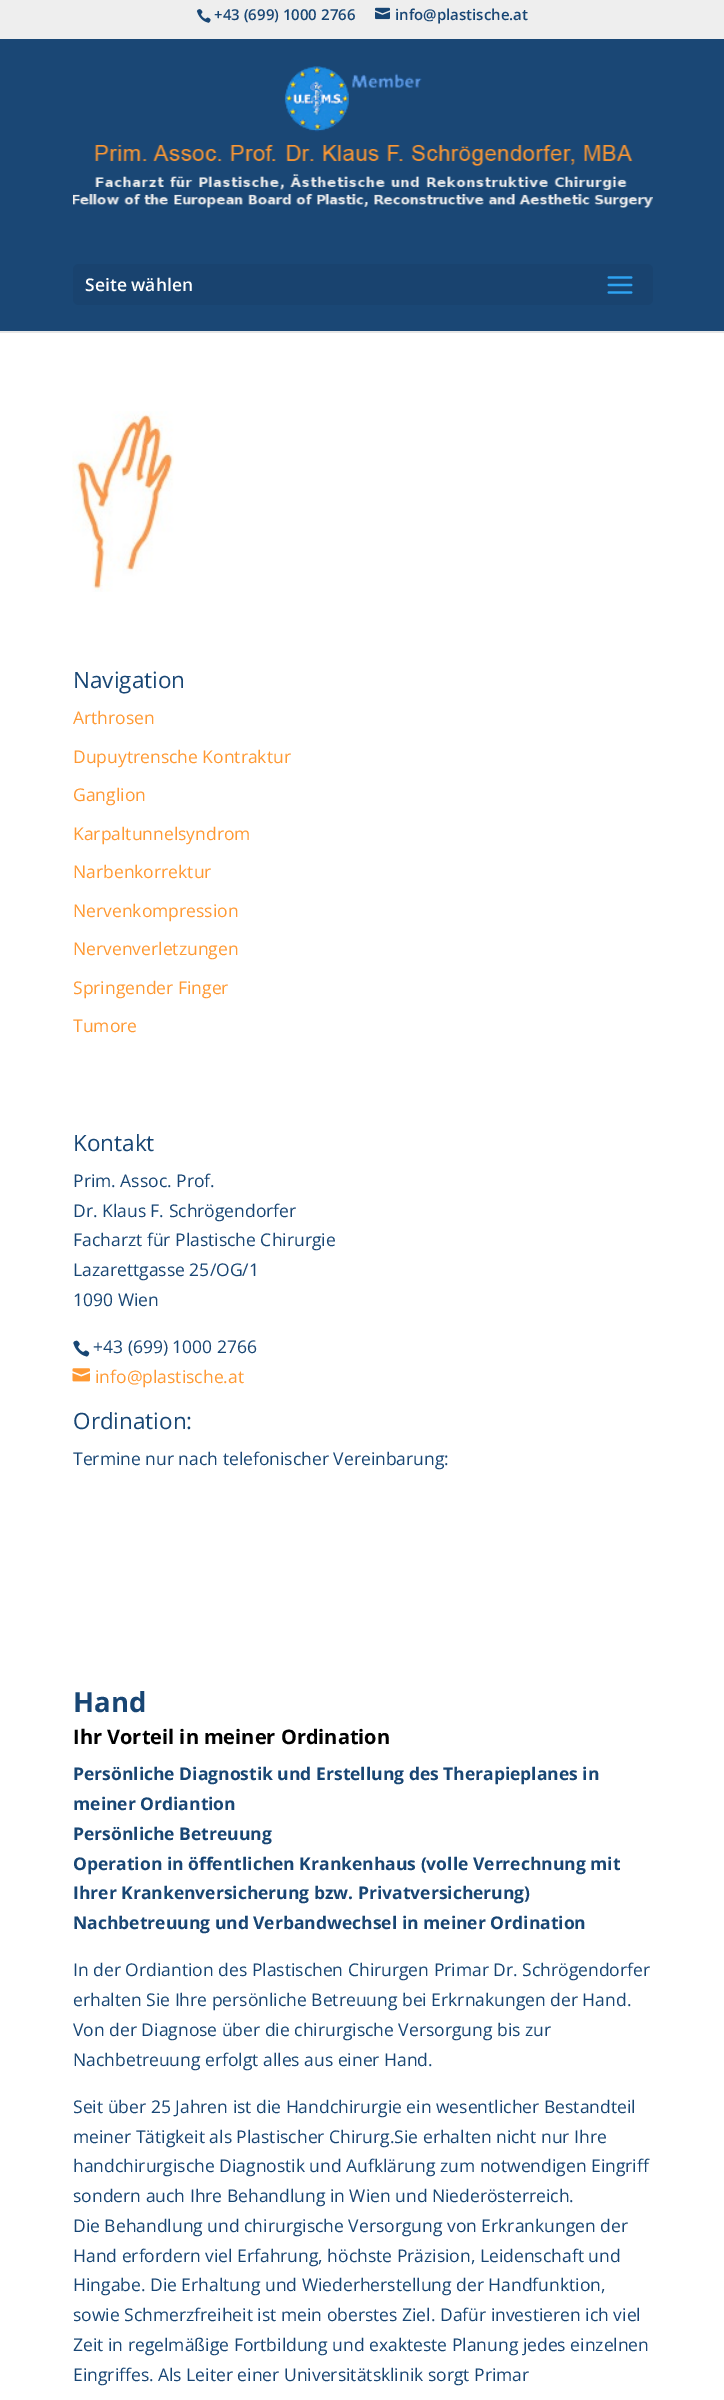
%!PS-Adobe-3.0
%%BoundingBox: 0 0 724 2400
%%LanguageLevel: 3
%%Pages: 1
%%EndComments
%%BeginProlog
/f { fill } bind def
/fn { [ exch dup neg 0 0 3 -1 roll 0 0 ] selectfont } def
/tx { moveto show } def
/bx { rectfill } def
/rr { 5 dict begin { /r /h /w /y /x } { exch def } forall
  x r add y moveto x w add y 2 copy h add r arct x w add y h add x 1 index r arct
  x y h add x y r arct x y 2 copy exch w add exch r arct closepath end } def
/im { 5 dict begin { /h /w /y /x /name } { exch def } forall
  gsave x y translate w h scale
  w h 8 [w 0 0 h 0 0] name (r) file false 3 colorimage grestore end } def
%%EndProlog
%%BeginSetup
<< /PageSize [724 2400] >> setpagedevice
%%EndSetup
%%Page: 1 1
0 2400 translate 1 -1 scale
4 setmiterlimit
1 setgray
0 0 724 2400 bx
0.933 setgray
0 0 724 39 bx
(image0.raw) 196 9 15 14 im
/OpenSans-SemiBold 15 fn
0.094 0.275 0.455 setrgbcolor
(+43 \(699\) 1000 2766) 214 20 tx
(image1.raw) 375 7 15 13 im
(info@plastische.at) 395 20 tx
0.902 setgray
0 331 724 2 bx
0.102 0.278 0.459 setrgbcolor
0 39 724 292 bx
(image2.raw) 284 66 138 66 im
(image3.raw) 73 145 580 63 im
0.098 0.263 0.435 setrgbcolor
73 264 580 41 6 rr f
/OpenSans-SemiBold 17.5 fn
1 setgray
(Seite wählen) 85 291 tx
(image4.raw) 607 276 26 18 im
(image5.raw) 72 411 102 181 im
/OpenSans-Regular 22.5 fn
0.094 0.275 0.455 setrgbcolor
(Navigation) 73 688 tx
/OpenSans-Regular 17.5 fn
1 0.6 0.2 setrgbcolor
(Arthrosen) 73 724 tx
(Dupuytrensche Kontraktur) 73 763 tx
(Ganglion) 73 801 tx
(Karpaltunnelsyndrom) 73 840 tx
(Narbenkorrektur) 73 878 tx
(Nervenkompression) 73 917 tx
(Nervenverletzungen) 73 955 tx
(Springender Finger) 73 994 tx
(Tumore) 73 1032 tx
/OpenSans-Regular 22.5 fn
0.094 0.275 0.455 setrgbcolor
(Kontakt) 73 1151 tx
/OpenSans-Regular 17.5 fn
(Prim. Assoc. Prof.) 73 1187 tx
(Dr. Klaus F. Schrögendorfer) 73 1217 tx
(Facharzt für Plastische Chirurgie) 73 1246 tx
(Lazarettgasse 25/OG/1) 73 1276 tx
(1090 Wien) 73 1306 tx
(image6.raw) 73 1340 17 17 im
(+43 \(699\) 1000 2766) 93 1353 tx
(image7.raw) 72 1368 18 14 im
1 0.6 0.2 setrgbcolor
(info@plastische.at) 95 1383 tx
/OpenSans-Regular 22.5 fn
0.094 0.275 0.455 setrgbcolor
(Ordination:) 73 1429 tx
/OpenSans-Regular 17.5 fn
(Termine nur nach telefonischer Vereinbarung:) 73 1465 tx
/OpenSans-Bold 27.5 fn
(Hand) 73 1712 tx
/OpenSans-Bold 20 fn
0 setgray
(Ihr Vorteil in meiner Ordination) 73 1744 tx
/OpenSans-Bold 17.5 fn
0.094 0.275 0.455 setrgbcolor
(Persönliche Diagnostik und Erstellung des Therapieplanes in) 73 1780 tx
(meiner Ordiantion) 73 1810 tx
(Persönliche Betreuung) 73 1840 tx
(Operation in öffentlichen Krankenhaus \(volle Verrechnung mit) 73 1870 tx
(Ihrer Krankenversicherung bzw. Privatversicherung\)) 73 1899 tx
(Nachbetreuung und Verbandwechsel in meiner Ordination) 73 1929 tx
/OpenSans-Regular 17.5 fn
(In der Ordiantion des Plastischen Chirurgen Primar Dr. Schrögendorfer) 73 1976 tx
(erhalten Sie Ihre persönliche Betreuung bei Erkrnakungen der Hand.) 73 2006 tx
(Von der Diagnose über die chirurgische Versorgung bis zur) 73 2036 tx
(Nachbetreuung erfolgt alles aus einer Hand.) 73 2066 tx
(Seit über 25 Jahren ist die Handchirurgie ein wesentlicher Bestandteil) 73 2113 tx
(meiner Tätigkeit als Plastischer Chirurg.Sie erhalten nicht nur Ihre) 73 2143 tx
(handchirurgische Diagnostik und Aufklärung zum notwendigen Eingriff) 73 2172 tx
(sondern auch Ihre Behandlung in Wien und Niederösterreich.) 73 2202 tx
(Die Behandlung und chirurgische Versorgung von Erkrankungen der) 73 2232 tx
(Hand erfordern viel Erfahrung, höchste Präzision, Leidenschaft und) 73 2262 tx
(Hingabe. Die Erhaltung und Wiederherstellung der Handfunktion,) 73 2291 tx
(sowie Schmerzfreiheit ist mein oberstes Ziel. Dafür investieren ich viel) 73 2321 tx
(Zeit in regelmäßige Fortbildung und exakteste Planung jedes einzelnen) 73 2351 tx
(Eingriffes. Als Leiter einer Universitätsklinik sorgt Primar) 73 2381 tx
showpage
%%EOF
